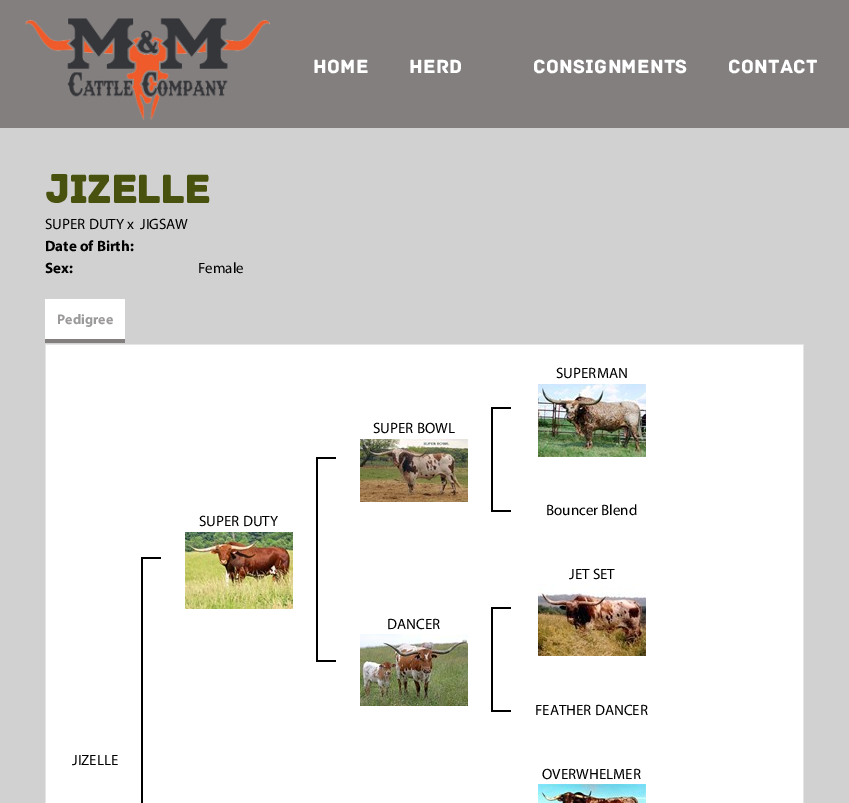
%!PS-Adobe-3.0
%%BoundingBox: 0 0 849 803
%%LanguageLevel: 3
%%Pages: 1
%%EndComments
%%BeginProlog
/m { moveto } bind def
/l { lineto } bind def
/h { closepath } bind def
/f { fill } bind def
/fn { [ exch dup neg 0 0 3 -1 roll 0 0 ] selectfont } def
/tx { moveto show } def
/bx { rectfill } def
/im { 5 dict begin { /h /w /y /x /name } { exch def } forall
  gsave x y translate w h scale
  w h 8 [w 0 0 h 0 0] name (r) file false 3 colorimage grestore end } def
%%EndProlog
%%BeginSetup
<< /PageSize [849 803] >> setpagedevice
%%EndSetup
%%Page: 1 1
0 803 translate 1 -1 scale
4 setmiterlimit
0.824 0.82 0.824 setrgbcolor
0 0 849 803 bx
0.518 0.498 0.498 setrgbcolor
0 0 849 128 bx
(image0.raw) 25 18 245 102 im
/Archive-Regular 20 fn
1 setgray
313 73 m 0.25 0 (HOME) ashow
409 73 m 0.25 0 (HERD) ashow
533 73 m 0.25 0 (CONSIGNMENTS) ashow
728 73 m 0.25 0 (CONTACT) ashow
/Archive-Bold 41.25 fn
0.282 0.318 0.051 setrgbcolor
(JIZELLE) 45 203 tx
/Myriad-Regular 15 fn
0 setgray
(SUPER DUTY x) 45 229 tx
(JIGSAW) 140 229 tx
/Myriad-Bold 15 fn
(Date of Birth:) 45 251 tx
(Sex:) 45 273 tx
/Myriad-Regular 15 fn
(Female) 198 273 tx
0.898 setgray
45 344 759 1 bx
0.518 0.498 0.498 setrgbcolor
45 339 80 4 bx
1 setgray
45 299 80 40 bx
/Myriad-Bold 14 fn
0.608 0.6 0.6 setrgbcolor
(Pedigree) 57 324 tx
1 setgray
46 345 757 458 bx
0.898 setgray
804 345 m 803 345 l 803 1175 l 803 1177 l 804 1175 l h f
45 345 m 46 345 l 46 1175 l 46 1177 l 45 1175 l h f
/Myriad-Regular 15 fn
0 setgray
(SUPERMAN) 556 378 tx
(image1.raw) 538 384 108 73 im
(SUPER BOWL) 373 433 tx
(image2.raw) 360 439 108 63 im
491 407 20 2 bx
491 510 20 2 bx
491 407 2 105 bx
(SUPER DUTY) 199 526 tx
(image3.raw) 185 532 108 77 im
316 457 20 2 bx
316 660 20 2 bx
316 457 2 205 bx
(JIZELLE) 72 765 tx
141 557 20 2 bx
141 557 2 246 bx
(Bouncer Blend) 546 515 tx
(JET SET) 569 579 tx
(image4.raw) 538 584 108 72 im
(DANCER) 387 629 tx
(image5.raw) 360 634 108 72 im
491 607 20 2 bx
491 710 20 2 bx
491 607 2 105 bx
(FEATHER DANCER) 535 715 tx
(OVERWHELMER) 542 779 tx
(image6.raw) 538 784 108 19 im
showpage
%%EOF
